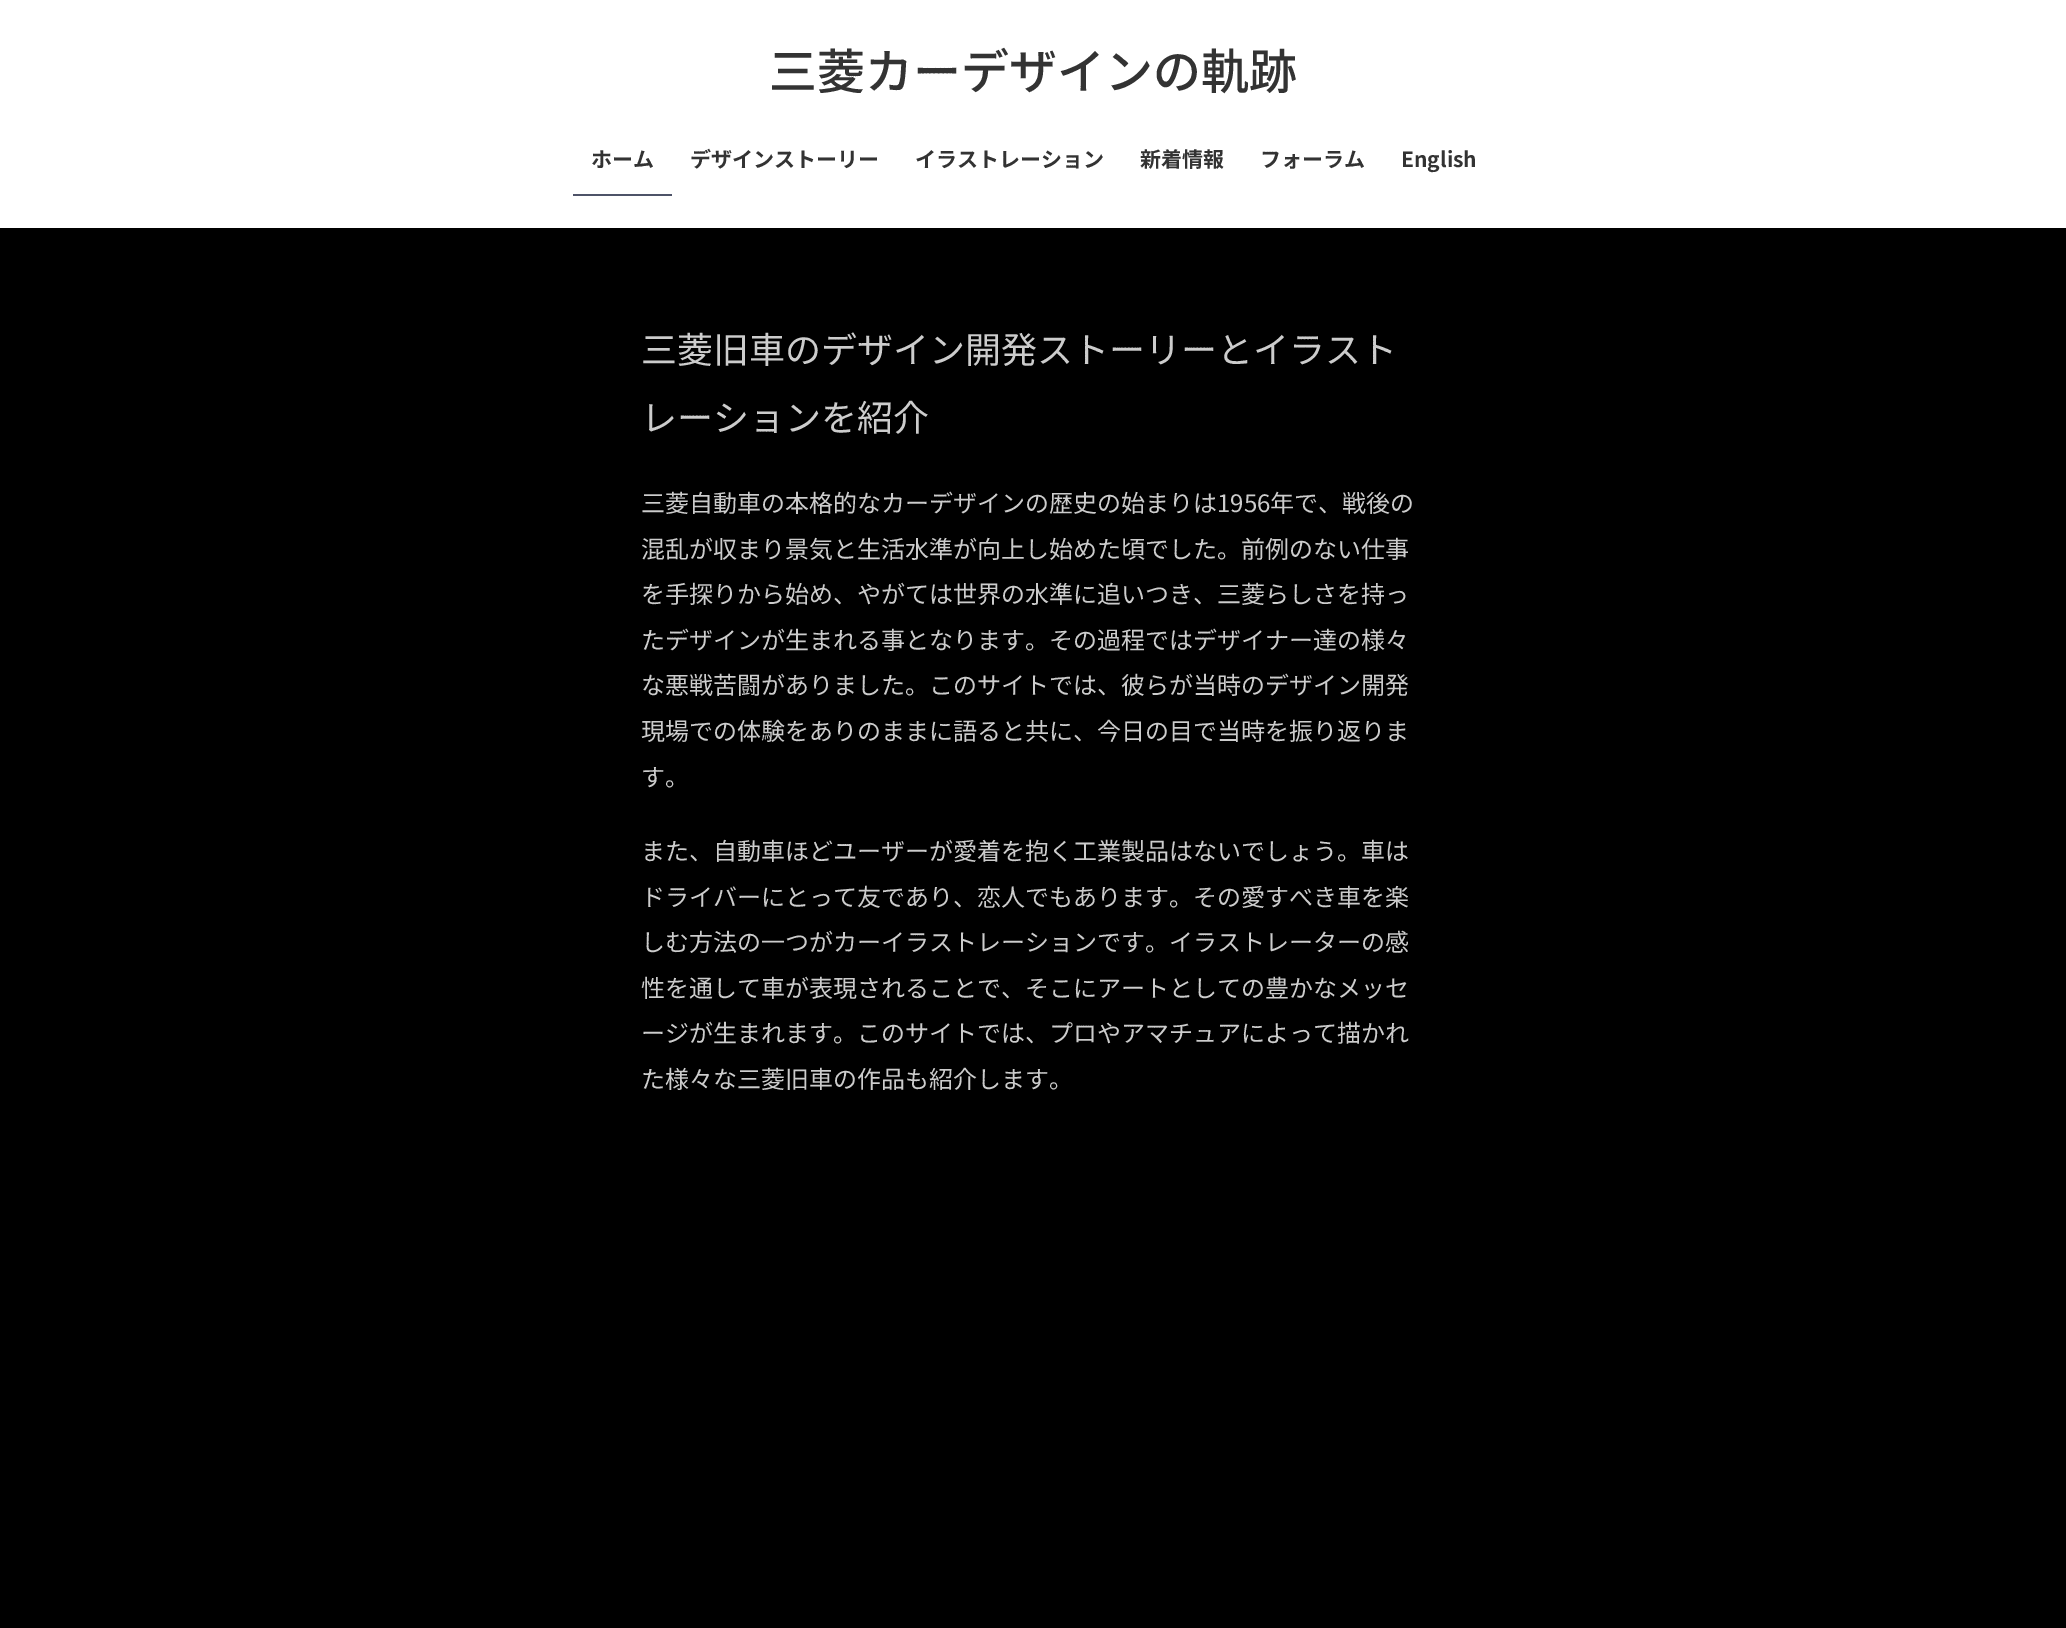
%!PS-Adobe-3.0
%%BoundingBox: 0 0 2066 1628
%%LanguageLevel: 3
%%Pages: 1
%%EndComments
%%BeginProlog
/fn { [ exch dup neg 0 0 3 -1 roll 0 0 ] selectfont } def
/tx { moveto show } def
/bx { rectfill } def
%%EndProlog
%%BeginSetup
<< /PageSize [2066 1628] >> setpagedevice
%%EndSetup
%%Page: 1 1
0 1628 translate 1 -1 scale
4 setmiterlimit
0 setgray
0 0 2066 1628 bx
1 setgray
0 0 2066 228 bx
/NotoSansJP-Medium 48 fn
0.2 setgray
(三菱カーデザインの軌跡) 769 89 tx
/NotoSansJP-Bold 21 fn
(ホーム) 591 167 tx
0.306 0.325 0.408 setrgbcolor
573 194 99 2 bx
0.2 setgray
(デザインストーリー) 690 167 tx
(イラストレーション) 915 167 tx
(新着情報) 1140 167 tx
(フォーラム) 1260 167 tx
(English) 1401 167 tx
/NotoSansJP-Regular 36 fn
0.8 setgray
(三菱旧車のデザイン開発ストーリーとイラスト) 641 363 tx
(レーションを紹介) 641 431 tx
/NotoSansJP-Regular 24 fn
(三菱自動車の本格的なカーデザインの歴史の始まりは1956年で、戦後の) 641 512 tx
(混乱が収まり景気と生活水準が向上し始めた頃でした。前例のない仕事) 641 558 tx
(を手探りから始め、やがては世界の水準に追いつき、三菱らしさを持っ) 641 603 tx
(たデザインが生まれる事となります。その過程ではデザイナー達の様々) 641 649 tx
(な悪戦苦闘がありました。このサイトでは、彼らが当時のデザイン開発) 641 694 tx
(現場での体験をありのままに語ると共に、今日の目で当時を振り返りま) 641 740 tx
(す。) 641 786 tx
(また、自動車ほどユーザーが愛着を抱く工業製品はないでしょう。車は) 641 860 tx
(ドライバーにとって友であり、恋人でもあります。その愛すべき車を楽) 641 906 tx
(しむ方法の一つがカーイラストレーションです。イラストレーターの感) 641 951 tx
(性を通して車が表現されることで、そこにアートとしての豊かなメッセ) 641 997 tx
(ージが生まれます。このサイトでは、プロやアマチュアによって描かれ) 641 1042 tx
(た様々な三菱旧車の作品も紹介します。) 641 1088 tx
showpage
%%EOF
